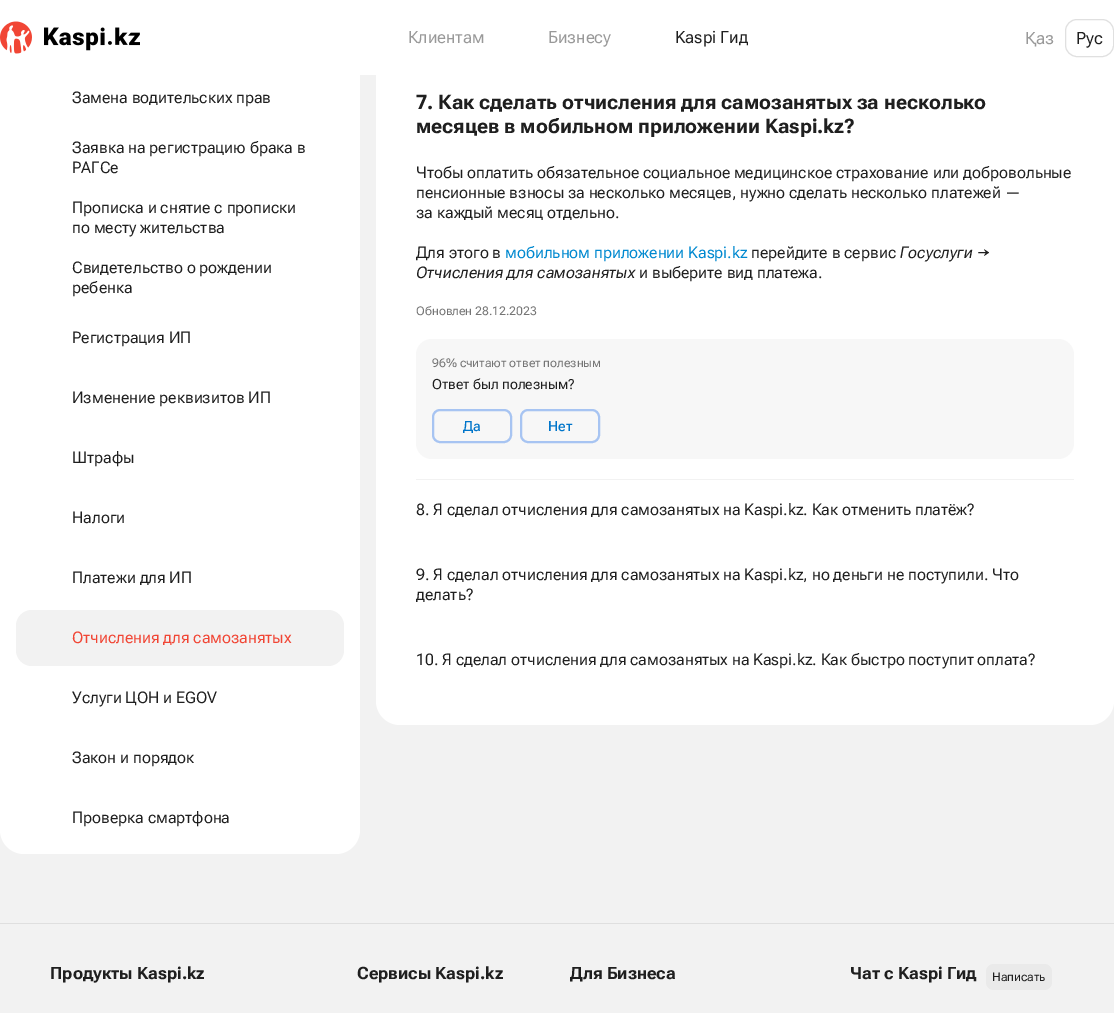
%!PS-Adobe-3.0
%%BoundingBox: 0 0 1114 1013
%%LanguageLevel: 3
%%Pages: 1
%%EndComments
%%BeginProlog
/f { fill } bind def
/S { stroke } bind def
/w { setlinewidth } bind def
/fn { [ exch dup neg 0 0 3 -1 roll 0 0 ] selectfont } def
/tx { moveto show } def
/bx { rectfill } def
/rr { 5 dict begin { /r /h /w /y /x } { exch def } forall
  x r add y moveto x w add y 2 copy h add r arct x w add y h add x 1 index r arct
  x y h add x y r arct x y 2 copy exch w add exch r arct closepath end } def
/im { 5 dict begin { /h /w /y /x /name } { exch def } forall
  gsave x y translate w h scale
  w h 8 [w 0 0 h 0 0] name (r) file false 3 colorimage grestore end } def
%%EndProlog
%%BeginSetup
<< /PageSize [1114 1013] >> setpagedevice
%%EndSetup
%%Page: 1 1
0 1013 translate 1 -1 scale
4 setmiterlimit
0.949 setgray
0 0 1114 1013 bx
1 setgray
360 0 16 75 bx
0 -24 360 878 24 rr f
(image0.raw) 0 21 140 33 im
376 -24 738 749 24 rr f
/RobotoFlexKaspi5-Italic 17 fn
0.6 setgray
(Клиентам) 408 43 tx
(Бизнесу) 548 43 tx
0.122 setgray
(Kaspi Гид) 675 43 tx
/RobotoFlex-Regular 17 fn
0.6 setgray
(Қаз) 1025 44 tx
0.878 setgray
1065.5 19.5 48 37 11.5 rr S
0.122 setgray
(Рус) 1076 44 tx
/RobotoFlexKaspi-Italic 16 fn
(Замена водительских прав) 72 103 tx
(Заявка на регистрацию брака в) 72 153 tx
(РАГСе) 72 173 tx
(Прописка и снятие с прописки) 72 213 tx
(по месту жительства) 72 233 tx
(Свидетельство о рождении) 72 273 tx
(ребенка) 72 293 tx
(Регистрация ИП) 72 343 tx
(Изменение реквизитов ИП) 72 403 tx
(Штрафы) 72 463 tx
(Налоги) 72 523 tx
(Платежи для ИП) 72 583 tx
0.949 setgray
16 610 328 56 16 rr f
0.945 0.275 0.208 setrgbcolor
(Отчисления для самозанятых) 72 643 tx
0.122 setgray
(Услуги ЦОН и EGOV) 72 703 tx
(Закон и порядок) 72 763 tx
(Проверка смартфона) 72 823 tx
/RobotoFlexKaspi-BoldItalic 20 fn
(7. Как сделать отчисления для самозанятых за несколько) 416 109 tx
(месяцев в мобильном приложении Kaspi.kz?) 416 133 tx
0.949 setgray
416 479 658 1 bx
/RobotoFlexKaspi-Italic 16 fn
0.122 setgray
(Чтобы оплатить обязательное социальное медицинское страхование или добровольные) 416 178 tx
(пенсионные взносы за несколько месяцев, нужно сделать несколько платежей —) 416 198 tx
(за каждый месяц отдельно.) 416 218 tx
(Для этого в) 416 258 tx
0 0.537 0.816 setrgbcolor
(мобильном приложении Kaspi.kz) 505 258 tx
0.122 setgray
(перейдите в сервис) 751 258 tx
/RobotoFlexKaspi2-Italic 16 fn
(Госуслуги →) 900 258 tx
(Отчисления для самозанятых) 416 278 tx
/RobotoFlexKaspi-Italic 16 fn
(и выберите вид платежа.) 639 278 tx
/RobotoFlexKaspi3-Italic 12 fn
0.459 setgray
(Обновлен 28.12.2023) 416 315 tx
0.969 setgray
416 339 658 120 16 rr f
0.459 setgray
(96% считают ответ полезным) 432 367 tx
/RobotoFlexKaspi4-Italic 14 fn
0.122 setgray
(Ответ был полезным?) 432 389 tx
0.655 0.769 0.949 setrgbcolor
2 w
433 410 78 32 7 rr S
/RobotoFlexKaspi-MediumItalic 14 fn
0 0.459 0.792 setrgbcolor
(Да) 463 431 tx
0.655 0.769 0.949 setrgbcolor
521 410 78 32 7 rr S
0 0.459 0.792 setrgbcolor
(Нет) 548 431 tx
/RobotoFlexKaspi-Italic 16 fn
0.122 setgray
(8. Я сделал отчисления для самозанятых на Kaspi.kz. Как отменить платёж?) 416 515 tx
(9. Я сделал отчисления для самозанятых на Kaspi.kz, но деньги не поступили. Что) 416 580 tx
(делать?) 416 600 tx
(10. Я сделал отчисления для самозанятых на Kaspi.kz. Как быстро поступит оплата?) 416 665 tx
0.875 setgray
0 923 1114 1 bx
/RobotoFlexKaspi2-BoldItalic 17 fn
0.122 setgray
(Продукты Kaspi.kz) 50 979 tx
(Сервисы Kaspi.kz) 357 979 tx
(Для Бизнеса) 570 979 tx
(Чат с Kaspi Гид) 850 979 tx
0.918 setgray
986 964 66 26 8 rr f
/RobotoFlexKaspi3-Italic 12 fn
0.122 setgray
(Написать) 992 981 tx
showpage
%%EOF
